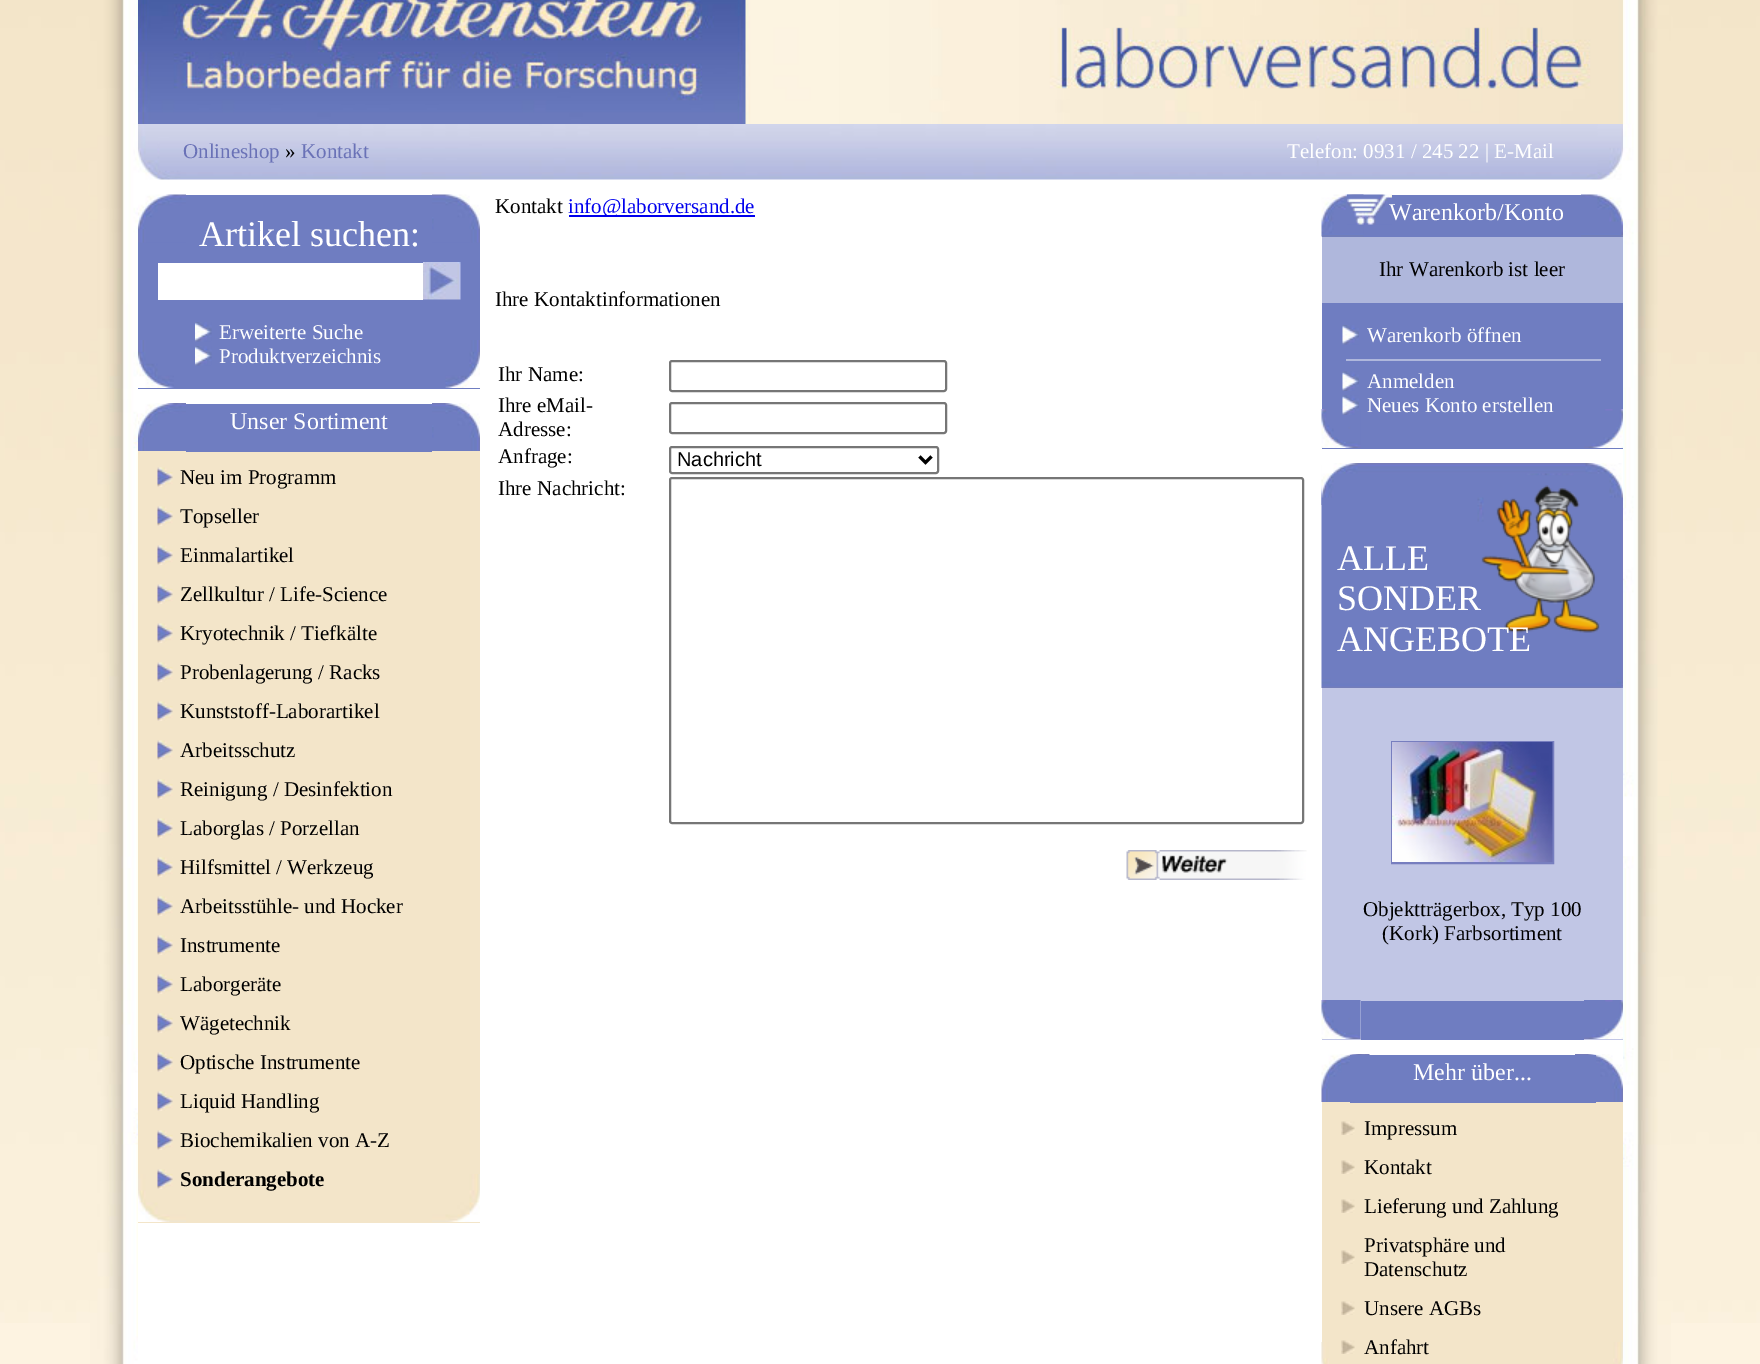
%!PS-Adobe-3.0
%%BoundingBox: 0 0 1760 1364
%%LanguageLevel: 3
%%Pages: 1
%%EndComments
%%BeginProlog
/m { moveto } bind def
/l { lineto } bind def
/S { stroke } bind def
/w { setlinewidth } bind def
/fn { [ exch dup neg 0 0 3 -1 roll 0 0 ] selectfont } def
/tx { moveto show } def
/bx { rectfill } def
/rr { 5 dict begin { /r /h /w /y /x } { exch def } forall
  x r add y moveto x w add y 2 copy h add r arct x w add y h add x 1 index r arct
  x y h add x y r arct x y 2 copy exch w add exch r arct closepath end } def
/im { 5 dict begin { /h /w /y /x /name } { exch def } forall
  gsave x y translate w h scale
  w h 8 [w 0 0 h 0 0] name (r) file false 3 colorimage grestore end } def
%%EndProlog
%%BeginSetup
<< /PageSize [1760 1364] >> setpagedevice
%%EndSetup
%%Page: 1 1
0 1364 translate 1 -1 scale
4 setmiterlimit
0.992 0.953 0.882 setrgbcolor
0 0 1760 1364 bx
(image0.raw) 0 0 1760 1323 im
(image1.raw) 90 0 48 1364 im
(image2.raw) 1623 0 48 1364 im
1 setgray
138 179 1485 1185 bx
(image3.raw) 138 0 1485 124 im
(image4.raw) 138 124 1485 56 im
/LiberationSerif-Regular 21 fn
0.416 0.447 0.718 setrgbcolor
(Onlineshop) 183 158 tx
0 setgray
(») 285 158 tx
0.416 0.447 0.718 setrgbcolor
(Kontakt) 301 158 tx
1 setgray
(Telefon: 0931 / 245 22 | E-Mail) 1287 158 tx
0.435 0.49 0.757 setrgbcolor
138 195 342 194 bx
(image5.raw) 138 194 48 49 im
(image6.raw) 432 194 48 49 im
(image7.raw) 138 340 36 48 im
(image8.raw) 445 340 35 48 im
/LiberationSerif-Regular 36 fn
1 setgray
(Artikel suchen:) 199 246 tx
158 263 265 37 bx
(image9.raw) 423 262 38 38 im
(image10.raw) 195 322 17 20 im
/LiberationSerif-Regular 21 fn
(Erweiterte Suche) 219 339 tx
(image10.raw) 195 346 17 20 im
(Produktverzeichnis) 219 363 tx
0.953 0.898 0.788 setrgbcolor
138 451 342 772 bx
(image11.raw) 138 403 48 48 im
(image12.raw) 432 403 48 48 im
(image13.raw) 138 1174 48 48 im
(image14.raw) 432 1174 48 48 im
0.435 0.49 0.757 setrgbcolor
186 404 246 48 bx
/LiberationSerif-Regular 24 fn
1 setgray
(Unser Sortiment) 230 429 tx
(image15.raw) 157 467 16 20 im
/LiberationSerif-Regular 21 fn
0 setgray
(Neu im Programm) 180 484 tx
(image15.raw) 157 506 16 20 im
(Topseller) 180 523 tx
(image15.raw) 157 545 16 20 im
(Einmalartikel) 180 562 tx
(image15.raw) 157 584 16 20 im
(Zellkultur / Life-Science) 180 601 tx
(image15.raw) 157 623 16 20 im
(Kryotechnik / Tiefkälte) 180 640 tx
(image15.raw) 157 662 16 20 im
(Probenlagerung / Racks) 180 679 tx
(image15.raw) 157 701 16 20 im
(Kunststoff-Laborartikel) 180 718 tx
(image15.raw) 157 740 16 20 im
(Arbeitsschutz) 180 757 tx
(image15.raw) 157 779 16 20 im
(Reinigung / Desinfektion) 180 796 tx
(image15.raw) 157 818 16 20 im
(Laborglas / Porzellan) 180 835 tx
(image15.raw) 157 857 16 20 im
(Hilfsmittel / Werkzeug) 180 874 tx
(image15.raw) 157 896 16 20 im
(Arbeitsstühle- und Hocker) 180 913 tx
(image15.raw) 157 935 16 20 im
(Instrumente) 180 952 tx
(image15.raw) 157 974 16 20 im
(Laborgeräte) 180 991 tx
(image15.raw) 157 1013 16 20 im
(Wägetechnik) 180 1030 tx
(image15.raw) 157 1052 16 20 im
(Optische Instrumente) 180 1069 tx
(image15.raw) 157 1091 16 20 im
(Liquid Handling) 180 1108 tx
(image15.raw) 157 1130 16 20 im
(Biochemikalien von A-Z) 180 1147 tx
(image15.raw) 157 1169 16 20 im
/LiberationSerif-Bold 21 fn
(Sonderangebote) 180 1186 tx
/LiberationSerif-Regular 21 fn
(Kontakt) 495 213 tx
0 0 0.933 setrgbcolor
569 215 186 2 bx
(info@laborversand.de) 568 213 tx
0 setgray
(Ihre Kontaktinformationen) 495 306 tx
(Ihr Name:) 498 381 tx
0.463 setgray
2 w
670 361 276 30 2 rr S
0 setgray
(Ihre eMail-) 498 412 tx
(Adresse:) 498 436 tx
0.463 setgray
670 403 276 30 2 rr S
0 setgray
(Anfrage:) 498 463 tx
0.463 setgray
670 447 268 26 2 rr S
0 setgray
3 w
919.5 456.5 m 925.5 462.5 l 931.5 456.5 l S
/LiberationSans-Regular 20 fn
(Nachricht) 677 466 tx
/LiberationSerif-Regular 21 fn
(Ihre Nachricht:) 498 495 tx
0.463 setgray
2 w
670 478 633 345 2 rr S
(image16.raw) 1126 850 181 30 im
0.435 0.49 0.757 setrgbcolor
1322 195 301 254 bx
(image17.raw) 1321 194 43 43 im
(image18.raw) 1581 194 42 43 im
(image19.raw) 1321 409 40 39 im
(image20.raw) 1584 409 39 39 im
(image21.raw) 1347 194 45 31 im
/LiberationSerif-Regular 24 fn
1 setgray
(Warenkorb/Konto) 1389 220 tx
0.686 0.718 0.863 setrgbcolor
1322 237 301 66 bx
/LiberationSerif-Regular 21 fn
0 setgray
(Ihr Warenkorb ist leer) 1379 276 tx
(image22.raw) 1342 325 17 20 im
1 setgray
(Warenkorb öffnen) 1367 342 tx
0.686 0.718 0.863 setrgbcolor
1346 359 255 2 bx
(image23.raw) 1342 371 17 20 im
1 setgray
(Anmelden) 1367 388 tx
(image23.raw) 1342 395 17 20 im
(Neues Konto erstellen) 1367 412 tx
0.757 0.776 0.898 setrgbcolor
1322 688 301 352 bx
(image24.raw) 1321 463 1 42 im
(image25.raw) 1321 1000 40 39 im
(image20.raw) 1584 1000 39 39 im
(image26.raw) 1321 463 302 225 im
/LiberationSerif-Regular 36 fn
1 setgray
(ALLE) 1337 570 tx
(SONDER) 1337 610 tx
(ANGEBOTE) 1337 651 tx
0.467 0.494 0.749 setrgbcolor
1392 742 161 121 rectstroke
(image27.raw) 1392 742 161 120 im
/LiberationSerif-Regular 21 fn
0 setgray
(Objektträgerbox, Typ 100) 1363 916 tx
(\(Kork\) Farbsortiment) 1382 940 tx
0.435 0.49 0.757 setrgbcolor
1361 1001 223 39 bx
0.953 0.898 0.788 setrgbcolor
1322 1102 301 262 bx
(image28.raw) 1321 1054 49 48 im
(image29.raw) 1575 1054 48 48 im
(image30.raw) 1321 1342 8 22 im
(image31.raw) 1613 1342 10 22 im
0.435 0.49 0.757 setrgbcolor
1350 1055 246 48 bx
/LiberationSerif-Regular 24 fn
1 setgray
(Mehr über...) 1413 1080 tx
(image32.raw) 1341 1121 14 14 im
/LiberationSerif-Regular 21 fn
0 setgray
(Impressum) 1364 1135 tx
(image32.raw) 1341 1160 14 14 im
(Kontakt) 1364 1174 tx
(image32.raw) 1341 1199 14 14 im
(Lieferung und Zahlung) 1364 1213 tx
(image32.raw) 1341 1250 14 14 im
(Privatsphäre und) 1364 1252 tx
(Datenschutz) 1364 1276 tx
(image32.raw) 1341 1301 14 14 im
(Unsere AGBs) 1364 1315 tx
(image32.raw) 1341 1340 14 14 im
(Anfahrt) 1364 1354 tx
showpage
%%EOF
